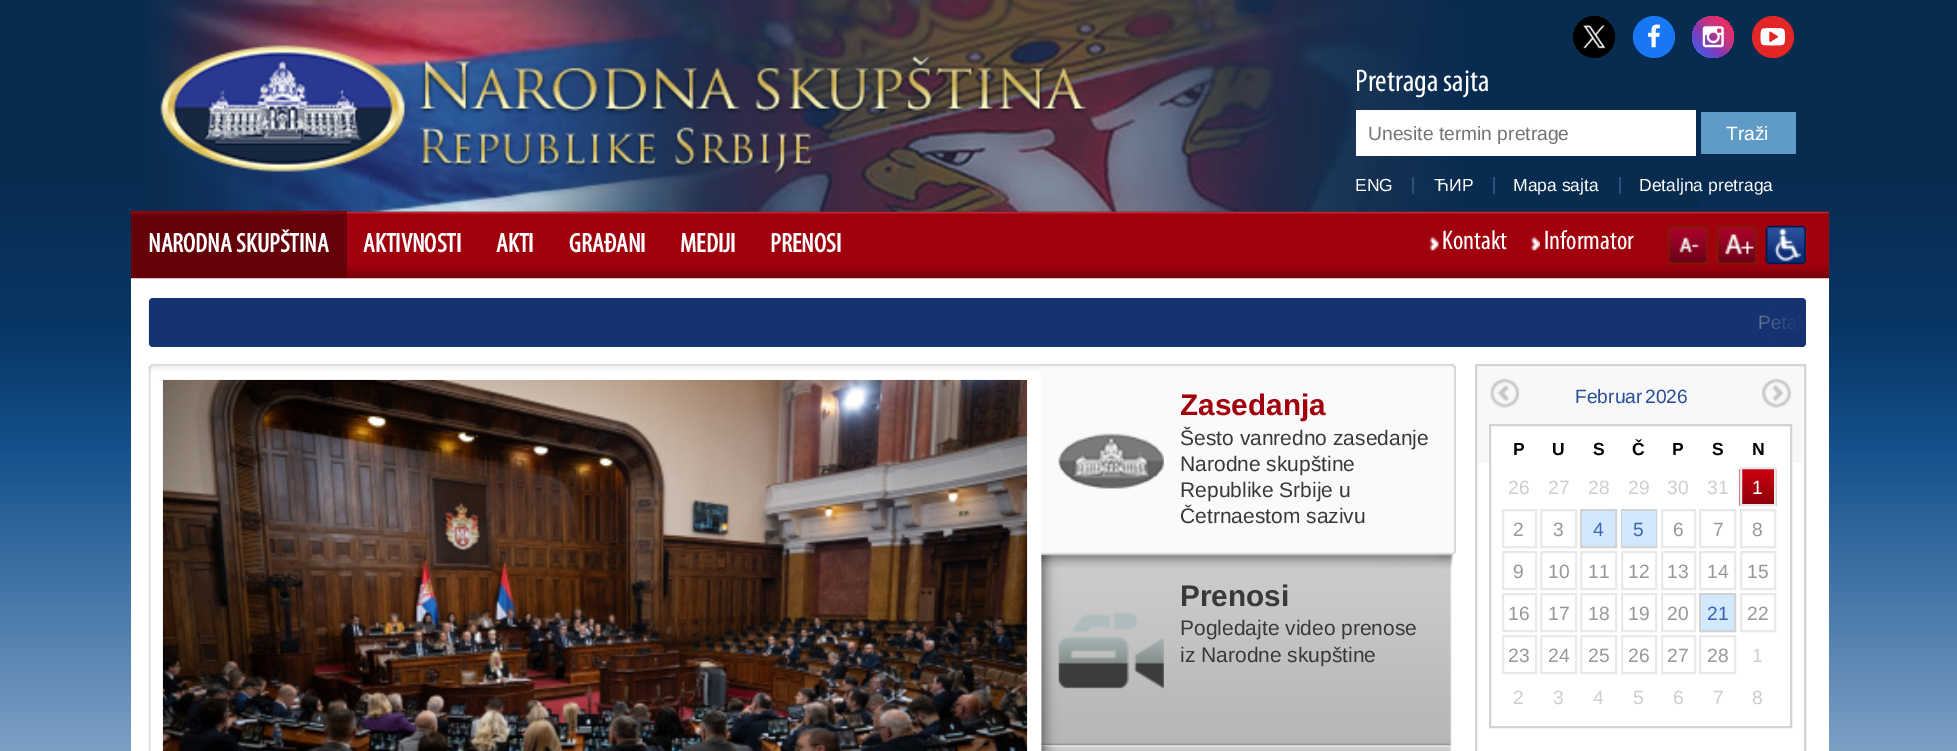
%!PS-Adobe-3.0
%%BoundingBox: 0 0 1957 751
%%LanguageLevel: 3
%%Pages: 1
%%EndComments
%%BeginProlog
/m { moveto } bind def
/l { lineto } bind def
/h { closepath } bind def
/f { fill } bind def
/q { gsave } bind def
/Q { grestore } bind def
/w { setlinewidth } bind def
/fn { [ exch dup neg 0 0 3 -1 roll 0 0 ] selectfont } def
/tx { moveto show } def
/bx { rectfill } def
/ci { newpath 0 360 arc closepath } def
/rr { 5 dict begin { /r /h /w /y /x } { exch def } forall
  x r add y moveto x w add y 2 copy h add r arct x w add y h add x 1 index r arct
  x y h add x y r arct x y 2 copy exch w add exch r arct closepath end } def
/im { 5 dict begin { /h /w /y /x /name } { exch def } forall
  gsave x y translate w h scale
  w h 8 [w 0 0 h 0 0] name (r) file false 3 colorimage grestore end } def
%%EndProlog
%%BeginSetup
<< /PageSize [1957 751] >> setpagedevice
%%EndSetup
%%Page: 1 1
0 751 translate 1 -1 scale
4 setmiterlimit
1 setgray
0 0 1957 751 bx
q 0 0 m 1957 0 l 1957 751 l 0 751 l h clip newpath
<< /ShadingType 2 /ColorSpace /DeviceRGB /Coords [979 0 979 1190] /Extend [true true] /Function << /FunctionType 3 /Domain [0 1] /Functions [<< /FunctionType 2 /Domain [0 1] /C0 [0.031 0.173 0.314] /C1 [0.031 0.173 0.314] /N 1 >> << /FunctionType 2 /Domain [0 1] /C0 [0.031 0.173 0.314] /C1 [0.031 0.216 0.4] /N 1 >> << /FunctionType 2 /Domain [0 1] /C0 [0.031 0.216 0.4] /C1 [0.082 0.318 0.557] /N 1 >> << /FunctionType 2 /Domain [0 1] /C0 [0.082 0.318 0.557] /C1 [0.627 0.737 0.843] /N 1 >> << /FunctionType 2 /Domain [0 1] /C0 [0.627 0.737 0.843] /C1 [1 1 1] /N 1 >> << /FunctionType 2 /Domain [0 1] /C0 [1 1 1] /C1 [1 1 1] /N 1 >>] /Bounds [0.15 0.28 0.38 0.72 0.99] /Encode [0 1 0 1 0 1 0 1 0 1 0 1] >> >> shfill Q
(image0.raw) 146 0 1554 212 im
0 setgray
1594 37 21 ci f
(image1.raw) 1573 15 43 43 im
0.094 0.467 0.949 setrgbcolor
1654 37 21 ci f
(image2.raw) 1648 24 12 24 im
q 1713 37 21 ci clip newpath
<< /ShadingType 2 /ColorSpace /DeviceRGB /Coords [1692 58 1734 16] /Extend [true true] /Function << /FunctionType 3 /Domain [0 1] /Functions [<< /FunctionType 2 /Domain [0 1] /C0 [0.251 0.365 0.902] /C1 [0.345 0.318 0.859] /N 1 >> << /FunctionType 2 /Domain [0 1] /C0 [0.345 0.318 0.859] /C1 [0.514 0.227 0.706] /N 1 >> << /FunctionType 2 /Domain [0 1] /C0 [0.514 0.227 0.706] /C1 [0.757 0.208 0.518] /N 1 >> << /FunctionType 2 /Domain [0 1] /C0 [0.757 0.208 0.518] /C1 [0.882 0.188 0.424] /N 1 >> << /FunctionType 2 /Domain [0 1] /C0 [0.882 0.188 0.424] /C1 [0.992 0.114 0.114] /N 1 >>] /Bounds [0.2 0.4 0.6 0.8] /Encode [0 1 0 1 0 1 0 1 0 1] >> >> shfill Q
(image3.raw) 1702 26 22 22 im
0.89 0.145 0.145 setrgbcolor
1773 37 21 ci f
(image4.raw) 1760 28 25 18 im
(image5.raw) 160 45 245 127 im
(image6.raw) 418 55 669 120 im
/Myriad-Regular 31.5 fn
1 setgray
(Pretraga sajta) 1355 91 tx
1356 110 340 46 bx
/LiberationSans-Regular 19.25 fn
0.459 setgray
(Unesite termin pretrage) 1368 140 tx
0.376 0.608 0.784 setrgbcolor
1701 112 95 42 bx
1 setgray
(Traži) 1726 140 tx
0.184 0.306 0.475 setrgbcolor
1412 177 2 17 bx
/LiberationSans-Regular 17.5 fn
1 setgray
(ENG) 1355 191 tx
0.184 0.306 0.475 setrgbcolor
1493 177 2 17 bx
1 setgray
(ЋИР) 1434 191 tx
0.184 0.306 0.475 setrgbcolor
1619 177 2 17 bx
1 setgray
(Mapa sajta) 1513 191 tx
(Detaljna pretraga) 1639 191 tx
131 278 1698 473 bx
(image7.raw) 131 211 1698 68 im
0.396 0.004 0.035 setrgbcolor
131 214 216 64 bx
0.553 0.004 0.047 setrgbcolor
131 211 216 3 bx
/Myriad-Bold 27 fn
1 setgray
(NARODNA SKUPŠTINA) 148 252 tx
(AKTIVNOSTI) 363 252 tx
(AKTI) 496 252 tx
(GRAĐANI) 569 252 tx
(MEDIJI) 680 252 tx
(PRENOSI) 770 252 tx
(image8.raw) 1429 236 10 15 im
/Myriad-Regular 27 fn
(Kontakt) 1442 249 tx
(image9.raw) 1531 236 9 15 im
(Informator) 1544 249 tx
(image10.raw) 1667 225 41 40 im
(image11.raw) 1716 225 41 40 im
(image12.raw) 1765 225 41 40 im
0.082 0.2 0.447 setrgbcolor
149 298 1657 49 4 rr f
(image13.raw) 148 301 2 44 im
/LiberationSans-Regular 19.25 fn
0.667 setgray
(Pe) 1758 329 tx
(image14.raw) 1759 301 47 44 im
(image19.raw) 1041 554 411 192 im
(image21.raw) 1041 745 411 6 im
(image15.raw) 148 364 894 387 im
(image16.raw) 162 379 866 372 im
(image17.raw) 1041 364 415 205 im
(image18.raw) 1058 433 106 56 im
/LiberationSans-Bold 29.75 fn
0.631 0.004 0.051 setrgbcolor
(Zasedanja) 1180 415 tx
/LiberationSans-Regular 21 fn
0.227 0.224 0.224 setrgbcolor
(Šesto vanredno zasedanje) 1180 445 tx
(Narodne skupštine) 1180 471 tx
(Republike Srbije u) 1180 497 tx
(Četrnaestom sazivu) 1180 523 tx
(image20.raw) 1058 612 106 77 im
/LiberationSans-Bold 29.75 fn
(Prenosi) 1180 606 tx
/LiberationSans-Regular 21 fn
(Pogledajte video prenose) 1180 635 tx
(iz Narodne skupštine) 1180 662 tx
0.973 setgray
1477 366 327 97 bx
0.831 0.827 0.827 setrgbcolor
2 w
1476 365 329 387 rectstroke
(image22.raw) 1489 378 30 30 im
/LiberationSans-Regular 19.25 fn
0.161 0.31 0.604 setrgbcolor
(Februar) 1575 403 tx
(2026) 1645 403 tx
(image23.raw) 1762 378 30 30 im
1 setgray
1491 426 299 37 bx
0.831 0.827 0.827 setrgbcolor
1490 425 301 302 rectstroke
/LiberationSans-Bold 17.5 fn
0 setgray
(P) 1513 455 tx
(U) 1552 455 tx
(S) 1593 455 tx
(Č) 1632 455 tx
(P) 1672 455 tx
(S) 1712 455 tx
(N) 1752 455 tx
/LiberationSans-Regular 19.25 fn
0.808 setgray
(26) 1508 494 tx
(27) 1548 494 tx
(28) 1588 494 tx
(29) 1628 494 tx
(30) 1667 494 tx
(31) 1707 494 tx
(image24.raw) 1739 469 38 37 im
0.914 setgray
1741 468 34 37 rectstroke
1 setgray
(1) 1752 494 tx
0.914 setgray
1503 510 33 37 rectstroke
0.596 setgray
(2) 1513 536 tx
0.914 setgray
1541 510 35 37 rectstroke
0.596 setgray
(3) 1553 536 tx
0.827 0.824 0.824 setrgbcolor
1581 510 35 37 rectstroke
0.824 0.91 0.988 setrgbcolor
1582 511 33 35 bx
0.231 0.388 0.702 setrgbcolor
(4) 1593 536 tx
0.827 0.824 0.824 setrgbcolor
1622 510 34 37 rectstroke
0.824 0.91 0.988 setrgbcolor
1622 511 34 35 bx
0.231 0.388 0.702 setrgbcolor
(5) 1633 536 tx
0.914 setgray
1662 510 33 37 rectstroke
0.596 setgray
(6) 1673 536 tx
0.914 setgray
1700 510 35 37 rectstroke
0.596 setgray
(7) 1713 536 tx
0.914 setgray
1741 510 34 37 rectstroke
0.596 setgray
(8) 1752 536 tx
0.914 setgray
1503 552 33 37 rectstroke
0.596 setgray
(9) 1513 578 tx
0.914 setgray
1541 552 35 37 rectstroke
0.596 setgray
(10) 1548 578 tx
0.914 setgray
1581 552 35 37 rectstroke
0.596 setgray
(11) 1588 578 tx
0.914 setgray
1622 552 34 37 rectstroke
0.596 setgray
(12) 1628 578 tx
0.914 setgray
1662 552 33 37 rectstroke
0.596 setgray
(13) 1667 578 tx
0.914 setgray
1700 552 35 37 rectstroke
0.596 setgray
(14) 1707 578 tx
0.914 setgray
1741 552 34 37 rectstroke
0.596 setgray
(15) 1747 578 tx
0.914 setgray
1503 594 33 37 rectstroke
0.596 setgray
(16) 1508 620 tx
0.914 setgray
1541 594 35 37 rectstroke
0.596 setgray
(17) 1548 620 tx
0.914 setgray
1581 594 35 37 rectstroke
0.596 setgray
(18) 1588 620 tx
0.914 setgray
1622 594 34 37 rectstroke
0.596 setgray
(19) 1628 620 tx
0.914 setgray
1662 594 33 37 rectstroke
0.596 setgray
(20) 1667 620 tx
0.827 0.824 0.824 setrgbcolor
1700 594 35 37 rectstroke
0.824 0.91 0.988 setrgbcolor
1701 595 33 35 bx
0.231 0.388 0.702 setrgbcolor
(21) 1707 620 tx
0.914 setgray
1741 594 34 37 rectstroke
0.596 setgray
(22) 1747 620 tx
0.914 setgray
1503 636 33 37 rectstroke
0.596 setgray
(23) 1508 662 tx
0.914 setgray
1541 636 35 37 rectstroke
0.596 setgray
(24) 1548 662 tx
0.914 setgray
1581 636 35 37 rectstroke
0.596 setgray
(25) 1588 662 tx
0.914 setgray
1622 636 34 37 rectstroke
0.596 setgray
(26) 1628 662 tx
0.914 setgray
1662 636 33 37 rectstroke
0.596 setgray
(27) 1667 662 tx
0.914 setgray
1700 636 35 37 rectstroke
0.596 setgray
(28) 1707 662 tx
0.808 setgray
(1) 1752 662 tx
(2) 1513 704 tx
(3) 1553 704 tx
(4) 1593 704 tx
(5) 1633 704 tx
(6) 1673 704 tx
(7) 1713 704 tx
(8) 1752 704 tx
showpage
%%EOF
